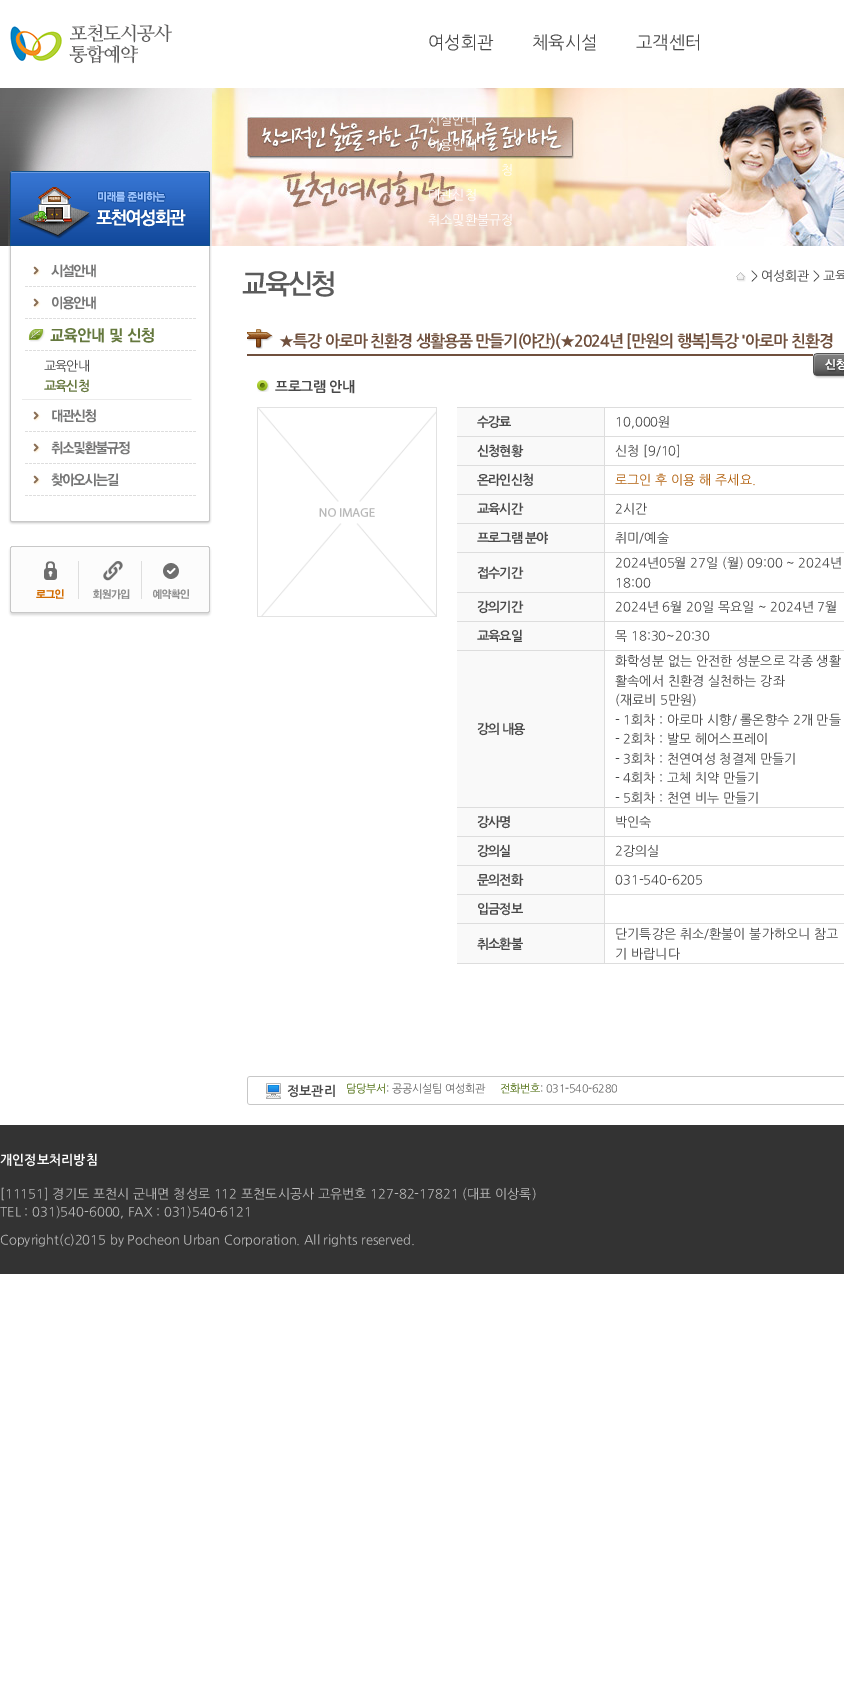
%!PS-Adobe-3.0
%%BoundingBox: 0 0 844 1688
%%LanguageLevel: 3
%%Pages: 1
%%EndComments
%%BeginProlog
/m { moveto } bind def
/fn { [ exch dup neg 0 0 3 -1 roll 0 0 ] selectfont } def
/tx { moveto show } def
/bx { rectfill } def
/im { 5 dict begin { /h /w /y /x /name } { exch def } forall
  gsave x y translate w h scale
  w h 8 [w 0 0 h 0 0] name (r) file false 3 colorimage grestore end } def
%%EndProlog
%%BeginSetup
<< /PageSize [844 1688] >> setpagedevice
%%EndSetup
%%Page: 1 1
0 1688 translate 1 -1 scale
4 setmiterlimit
1 setgray
0 0 844 1688 bx
(image0.raw) 0 171 8 75 im
(image1.raw) 10 24 162 40 im
/NanumGothic-Regular 17.5 fn
0.282 setgray
(여성회관) 428 48 tx
(image17.raw) 212 88 632 158 im
/NanumGothic-Regular 13 fn
1 setgray
(시설안내) 428 124 tx
(이용안내) 428 149 tx
(청) 501 174 tx
(대관신청) 428 199 tx
(취소및환불규정) 428 224 tx
/NanumGothic-Regular 17.5 fn
0.282 setgray
(체육시설) 532 48 tx
(고객센터) 636 48 tx
(image2.raw) 0 88 212 83 im
(image3.raw) 8 496 204 29 im
(image4.raw) 8 171 204 75 im
(image5.raw) 8 246 204 250 im
(image6.raw) 25 264 171 23 im
(image7.raw) 25 296 171 23 im
(image8.raw) 25 328 171 23 im
(image9.raw) 22 399 170 1 im
/NanumGothic-Regular 13 fn
44 370 m -1 0 (교육안내) ashow
/NanumGothic-Bold 13 fn
0.396 0.471 0.243 setrgbcolor
44 390 m -1 0 (교육신청) ashow
(image10.raw) 25 409 171 23 im
(image11.raw) 25 441 171 23 im
(image12.raw) 25 473 171 23 im
(image13.raw) 8 546 204 71 im
(image14.raw) 36 561 28 38 im
(image15.raw) 78 561 64 39 im
(image16.raw) 153 563 36 36 im
(image18.raw) 242 271 92 26 im
(image19.raw) 736 272 10 10 im
/NanumGothic-Regular 13 fn
0.282 setgray
751 280 m -0.25 0 (> 여성회관 > 교육) ashow
0.439 0.314 0.239 setrgbcolor
247 354 566 2 bx
(image20.raw) 247 329 26 20 im
/NanumGothic-Bold 16 fn
279 346 m -1 0 (★특강 아로마 친환경 생활용품 만들기\(야간\)\(★2024년 [만원의 행복]특강 '아로마 친환경) ashow
(image21.raw) 813 353 31 26 im
(image22.raw) 257 380 12 12 im
/NanumGothic-Bold 14 fn
0.282 setgray
275 391 m -0.5 0 (프로그램 안내) ashow
(image23.raw) 257 407 180 210 im
0.976 setgray
457 408 147 28 bx
0.867 setgray
604 407 240 1 bx
604 436 240 1 bx
604 465 240 1 bx
604 494 240 1 bx
604 523 240 1 bx
604 552 240 1 bx
604 592 240 1 bx
604 621 240 1 bx
604 650 240 1 bx
604 807 240 1 bx
604 836 240 1 bx
604 865 240 1 bx
604 894 240 1 bx
604 923 240 1 bx
604 963 240 1 bx
604 923 1 41 bx
457 923 148 1 bx
604 894 1 30 bx
457 894 148 1 bx
604 865 1 30 bx
457 865 148 1 bx
604 836 1 30 bx
457 836 148 1 bx
604 807 1 30 bx
457 807 148 1 bx
604 650 1 158 bx
457 650 148 1 bx
604 621 1 30 bx
457 621 148 1 bx
604 592 1 30 bx
457 592 148 1 bx
604 552 1 41 bx
457 552 148 1 bx
604 523 1 30 bx
457 523 148 1 bx
604 494 1 30 bx
457 494 148 1 bx
604 465 1 30 bx
457 465 148 1 bx
604 436 1 30 bx
457 436 148 1 bx
604 407 1 30 bx
457 407 148 1 bx
/NanumGothic-Bold 13 fn
0.282 setgray
477 426 m -1 0 (수강료) ashow
/NanumGothic-Regular 13 fn
(10,000원) 615 426 tx
0.976 setgray
457 437 147 28 bx
/NanumGothic-Bold 13 fn
0.282 setgray
477 455 m -1 0 (신청현황) ashow
/NanumGothic-Regular 13 fn
(신청 [9/10]) 615 455 tx
0.976 setgray
457 466 147 28 bx
/NanumGothic-Bold 13 fn
0.282 setgray
477 484 m -1 0 (온라인신청) ashow
/NanumGothic-Regular 13 fn
0.694 0.373 0.047 setrgbcolor
(로그인 후 이용 해 주세요.) 615 484 tx
0.976 setgray
457 495 147 28 bx
/NanumGothic-Bold 13 fn
0.282 setgray
477 513 m -1 0 (교육시간) ashow
/NanumGothic-Regular 13 fn
(2시간) 615 513 tx
0.976 setgray
457 524 147 28 bx
/NanumGothic-Bold 13 fn
0.282 setgray
477 542 m -1 0 (프로그램 분야) ashow
/NanumGothic-Regular 13 fn
(취미/예술) 615 542 tx
0.976 setgray
457 553 147 39 bx
/NanumGothic-Bold 13 fn
0.282 setgray
477 577 m -1 0 (접수기간) ashow
/NanumGothic-Regular 13 fn
(2024년05월 27일 \(월\) 09:00 ~ 2024년) 615 567 tx
(18:00) 615 587 tx
0.976 setgray
457 593 147 28 bx
/NanumGothic-Bold 13 fn
0.282 setgray
477 611 m -1 0 (강의기간) ashow
/NanumGothic-Regular 13 fn
(2024년 6월 20일 목요일 ~ 2024년 7월) 615 611 tx
0.976 setgray
457 622 147 28 bx
/NanumGothic-Bold 13 fn
0.282 setgray
477 640 m -1 0 (교육요일) ashow
/NanumGothic-Regular 13 fn
(목 18:30~20:30) 615 640 tx
0.976 setgray
457 651 147 156 bx
/NanumGothic-Bold 13 fn
0.282 setgray
477 733 m -1 0 (강의 내용) ashow
/NanumGothic-Regular 13 fn
(화학성분 없는 안전한 성분으로 각종 생활) 615 665 tx
(활속에서 친환경 실천하는 강좌) 615 685 tx
(\(재료비 5만원\)) 615 704 tx
(- 1회차 : 아로마 시향/ 롤온향수 2개 만들) 615 724 tx
(- 2회차 : 발모 헤어스프레이) 615 743 tx
(- 3회차 : 천연여성 청결제 만들기) 615 763 tx
(- 4회차 : 고체 치약 만들기) 615 782 tx
(- 5회차 : 천연 비누 만들기) 615 802 tx
0.976 setgray
457 808 147 28 bx
/NanumGothic-Bold 13 fn
0.282 setgray
477 826 m -1 0 (강사명) ashow
/NanumGothic-Regular 13 fn
(박인숙) 615 826 tx
0.976 setgray
457 837 147 28 bx
/NanumGothic-Bold 13 fn
0.282 setgray
477 855 m -1 0 (강의실) ashow
/NanumGothic-Regular 13 fn
(2강의실) 615 855 tx
0.976 setgray
457 866 147 28 bx
/NanumGothic-Bold 13 fn
0.282 setgray
477 884 m -1 0 (문의전화) ashow
/NanumGothic-Regular 13 fn
(031-540-6205) 615 884 tx
0.976 setgray
457 895 147 28 bx
/NanumGothic-Bold 13 fn
0.282 setgray
477 913 m -1 0 (입금정보) ashow
0.976 setgray
457 924 147 39 bx
0.867 setgray
457 963 148 1 bx
0.282 setgray
477 948 m -1 0 (취소환불) ashow
/NanumGothic-Regular 13 fn
(단기특강은 취소/환불이 불가하오니 참고) 615 938 tx
(기 바랍니다) 615 958 tx
(image24.raw) 247 1076 597 29 im
/NanumGothic-Bold 13 fn
(정보관리) 287 1095 tx
/NanumGothic-Regular 11 fn
0.271 0.404 0.012 setrgbcolor
346 1092 m -0.25 0 (담당부서) ashow
0.392 setgray
386 1092 m -0.25 0 (: 공공시설팀 여성회관) ashow
0.271 0.404 0.012 setrgbcolor
500 1092 m -0.25 0 (전화번호) ashow
0.392 setgray
540 1092 m -0.25 0 (: 031-540-6280) ashow
0.2 setgray
0 1125 844 149 bx
/NanumGothic-Bold 13 fn
1 setgray
(개인정보처리방침) 0 1164 tx
/NanumGothic-Regular 13 fn
0.733 setgray
([11151] 경기도 포천시 군내면 청성로 112 포천도시공사 고유번호 127-82-17821 \(대표 이상록\)) 0 1198 tx
(TEL : 031\)540-6000, FAX : 031\)540-6121) 0 1216 tx
(Copyright\(c\)2015 by Pocheon Urban Corporation. All rights reserved.) 0 1244 tx
showpage
%%EOF
